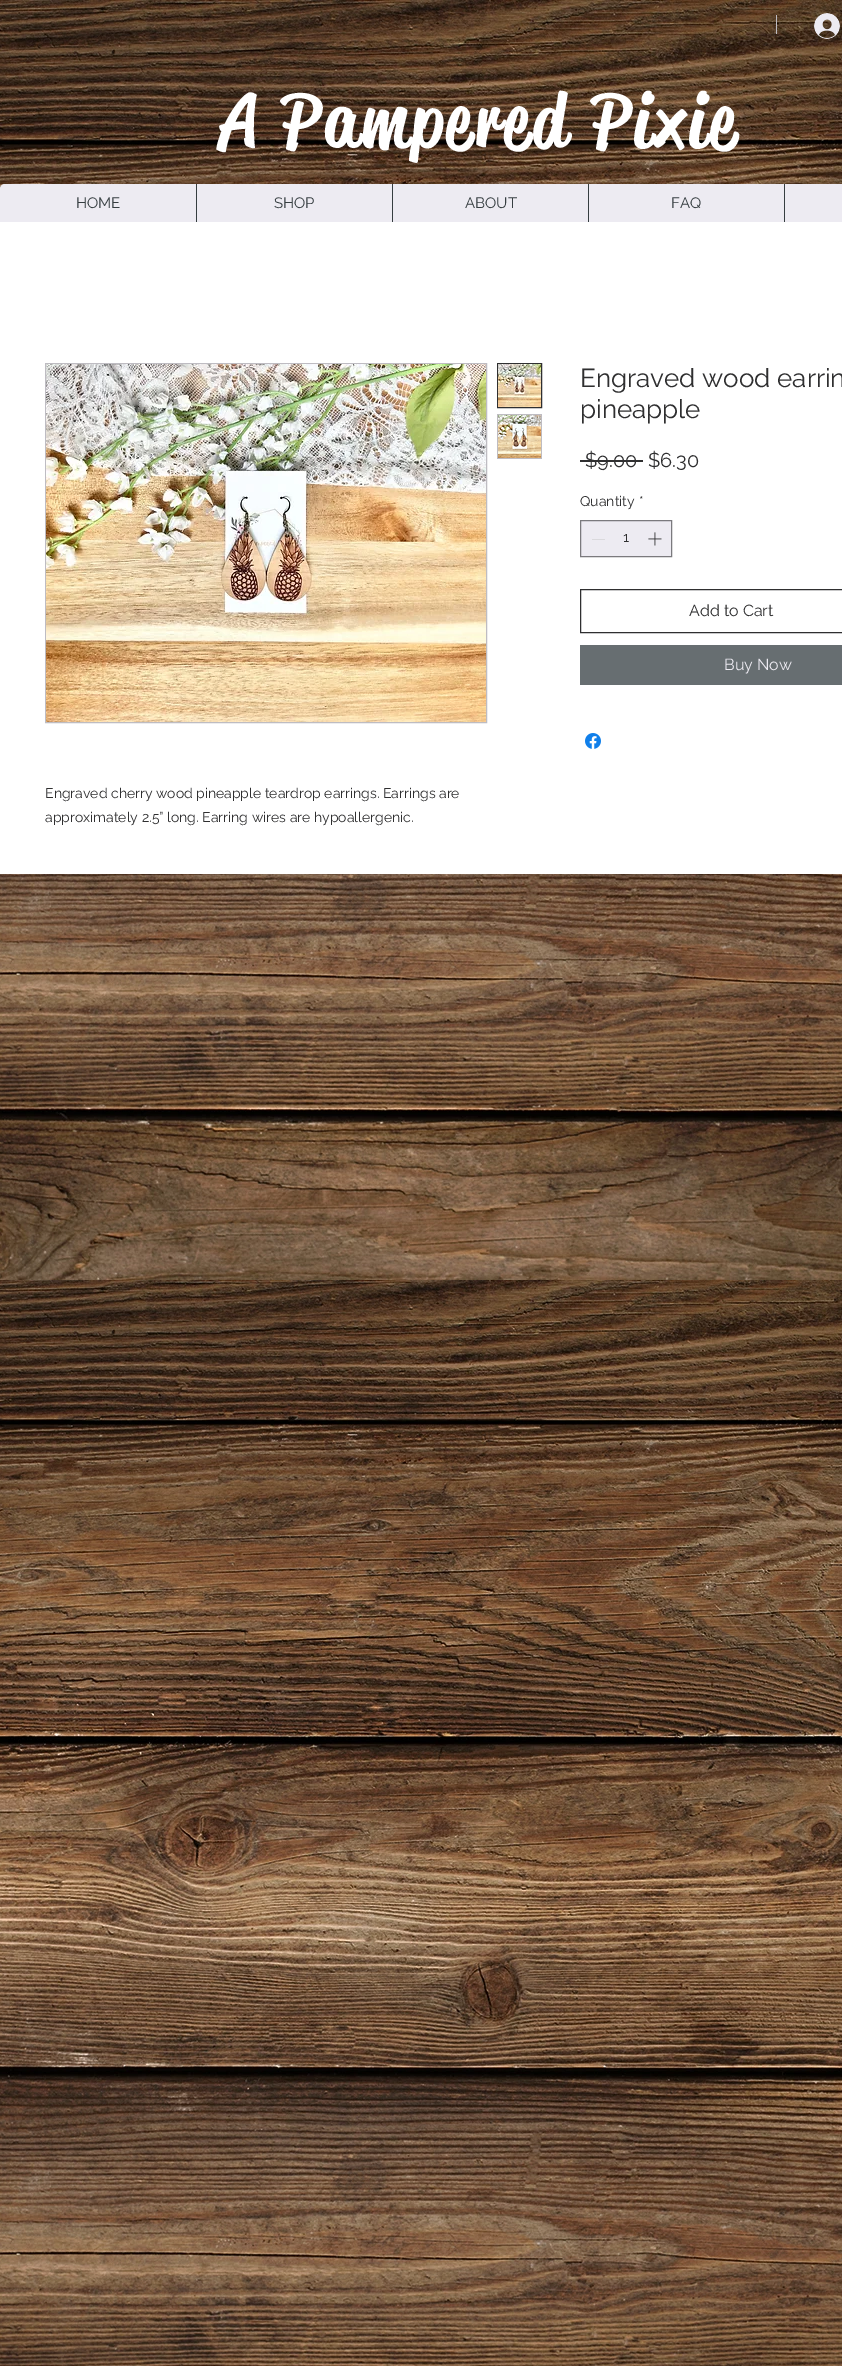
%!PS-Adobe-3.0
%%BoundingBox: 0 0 842 2366
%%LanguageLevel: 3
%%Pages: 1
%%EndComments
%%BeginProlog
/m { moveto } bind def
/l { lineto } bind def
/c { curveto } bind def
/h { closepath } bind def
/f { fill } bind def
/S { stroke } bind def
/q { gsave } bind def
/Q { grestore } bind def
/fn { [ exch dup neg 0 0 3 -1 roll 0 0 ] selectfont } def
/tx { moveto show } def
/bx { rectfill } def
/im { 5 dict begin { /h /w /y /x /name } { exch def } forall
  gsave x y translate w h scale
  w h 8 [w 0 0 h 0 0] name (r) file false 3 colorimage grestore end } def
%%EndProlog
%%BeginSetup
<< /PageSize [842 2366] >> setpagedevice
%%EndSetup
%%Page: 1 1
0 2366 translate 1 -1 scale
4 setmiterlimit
1 setgray
0 0 842 2366 bx
(image0.raw) 0 0 842 2366 im
0.745 0.737 0.761 setrgbcolor
776 15 1 19 bx
(image1.raw) 814 13 26 26 im
/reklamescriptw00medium-Medium 74 fn
1 setgray
220 146 m 3.75 0 (A Pampered Pixie) ashow
0.929 0.922 0.949 setrgbcolor
5 184 m 842 184 l 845 184 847 186 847 189 c 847 222 l 0 222 l 0 189 l 0 186 2 184 5 184 c h f
/Raleway-Regular 15 fn
0.212 0.243 0.255 setrgbcolor
(HOME) 76 208 tx
196 184 1 38 bx
(SHOP) 274 208 tx
392 184 1 38 bx
(ABOUT) 465 208 tx
588 184 1 38 bx
(FAQ) 671 208 tx
784 184 1 38 bx
1 setgray
0 222 842 652 bx
/Raleway-Regular 26 fn
0.184 0.184 0.188 setrgbcolor
(Engraved wood earrin) 580 387 tx
(pineapple) 580 418 tx
/Raleway-Regular 20 fn
($9.00) 585 467 tx
580 460 63 2 bx
($6.30) 648 467 tx
/Raleway-Regular 14 fn
(Quantity) 580 506 tx
(*) 639 506 tx
0.929 0.922 0.949 setrgbcolor
580.5 520.5 m 671.5 520.5 l 671.5 556.5 l 580.5 556.5 l h q f Q
0.482 0.478 0.494 setrgbcolor
S
0.855 0.851 0.867 setrgbcolor
592 539 13 1 bx
0.184 0.184 0.188 setrgbcolor
(1) 623 542 tx
(image2.raw) 648 532 14 14 im
580.5 589.5 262 43 rectstroke
/Raleway-Regular 16 fn
(Add to Cart) 689 616 tx
0.404 0.431 0.443 setrgbcolor
580 645 262 40 bx
0.929 0.922 0.949 setrgbcolor
(Buy Now) 724 670 tx
(image3.raw) 585 733 16 16 im
0.745 0.737 0.761 setrgbcolor
45.5 363.5 441 359 rectstroke
(image4.raw) 46 364 440 358 im
0.184 0.184 0.188 setrgbcolor
497.5 363.5 44 44 rectstroke
(image5.raw) 498 364 43 43 im
0.745 0.737 0.761 setrgbcolor
497 414 45 45 bx
(image6.raw) 498 415 43 43 im
/Raleway-Regular 14 fn
0.184 0.184 0.188 setrgbcolor
(Engraved cherry wood pineapple teardrop earrings. Earrings are) 45 798 tx
(approximately 2.5” long. Earring wires are hypoallergenic.) 45 822 tx
showpage
%%EOF
